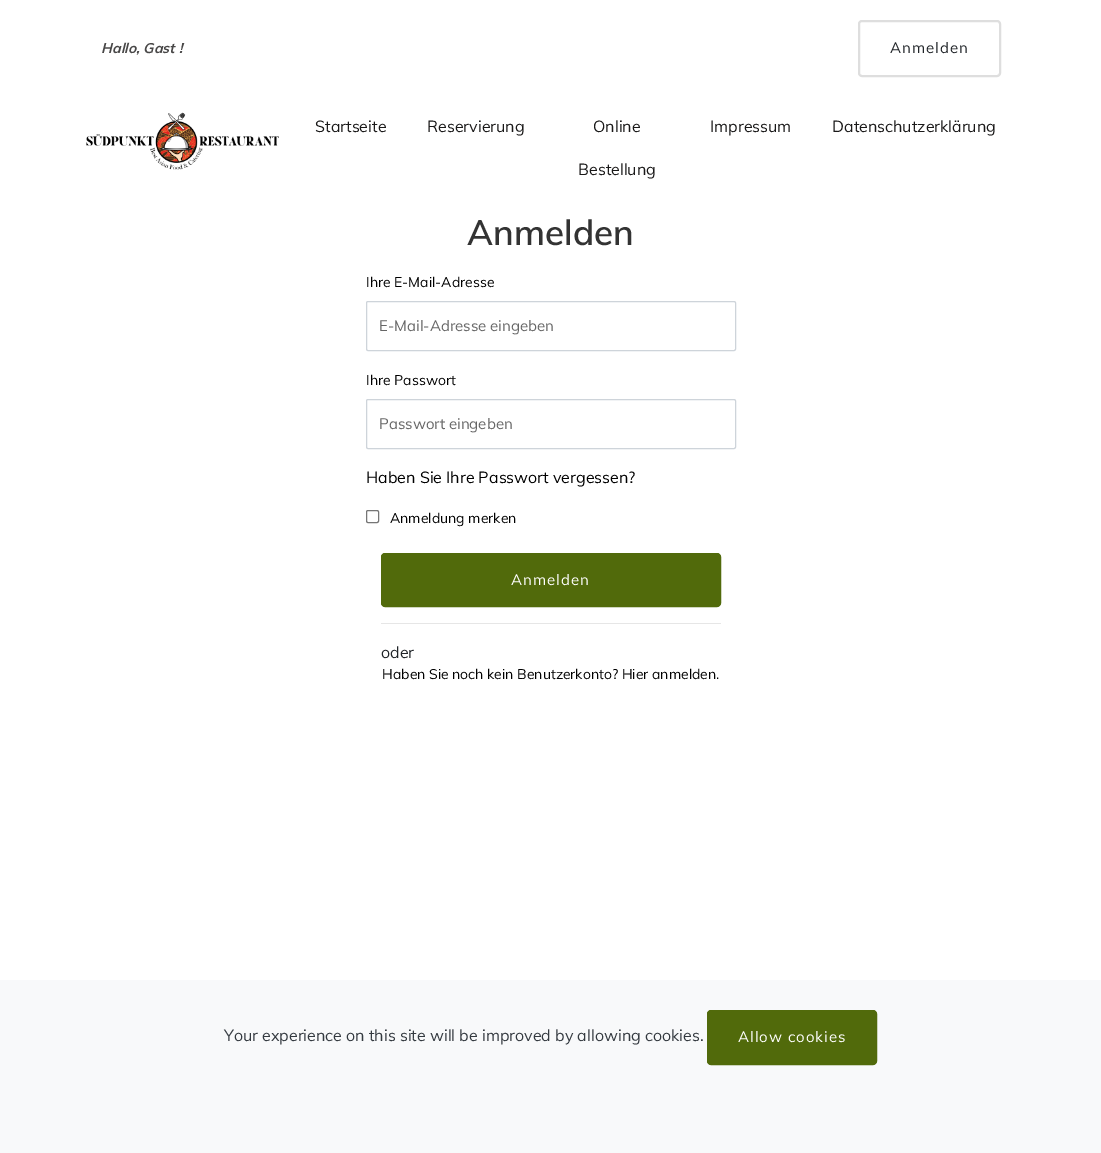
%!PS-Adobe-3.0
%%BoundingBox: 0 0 1101 1153
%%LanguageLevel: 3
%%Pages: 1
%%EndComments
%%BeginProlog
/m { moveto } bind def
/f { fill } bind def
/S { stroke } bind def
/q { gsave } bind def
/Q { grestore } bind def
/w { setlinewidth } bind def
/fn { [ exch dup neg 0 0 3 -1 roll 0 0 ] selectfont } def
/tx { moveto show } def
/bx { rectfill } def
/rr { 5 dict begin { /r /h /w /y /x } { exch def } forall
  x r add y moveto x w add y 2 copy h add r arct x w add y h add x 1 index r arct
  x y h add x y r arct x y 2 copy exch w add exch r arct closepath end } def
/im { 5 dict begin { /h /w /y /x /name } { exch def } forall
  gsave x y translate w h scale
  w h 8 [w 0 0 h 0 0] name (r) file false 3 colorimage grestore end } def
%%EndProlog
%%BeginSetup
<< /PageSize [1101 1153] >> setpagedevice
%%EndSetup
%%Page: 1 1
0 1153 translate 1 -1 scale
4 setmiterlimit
1 setgray
0 0 1101 1153 bx
/Muli-BoldItalic 14 fn
0.282 0.278 0.278 setrgbcolor
(Hallo, Gast !) 101 53 tx
0.871 setgray
2 w
859 21 141 55 3 rr S
/Muli-Regular 15 fn
0.129 0.145 0.161 setrgbcolor
890 53 m 1 0 (Anmelden) ashow
(image0.raw) 86 112 193 58 im
/Muli-Regular 16 fn
0.102 0.098 0.098 setrgbcolor
(Startseite) 315 132 tx
(Reservierung) 427 132 tx
(Online) 593 132 tx
(Bestellung) 578 175 tx
(Impressum) 710 132 tx
(Datenschutzerklärung) 832 132 tx
/Muli-SemiBold 35 fn
0.2 setgray
(Anmelden) 467 245 tx
/Muli-Regular 14 fn
0 setgray
(Ihre E-Mail-Adresse) 366 287 tx
0.808 0.831 0.855 setrgbcolor
1 w
366.5 301.5 369 49 1.5 rr S
/Muli-Regular 15 fn
0.4 setgray
(E-Mail-Adresse eingeben) 379 331 tx
/Muli-Regular 14 fn
0 setgray
(Ihre Passwort) 366 385 tx
0.808 0.831 0.855 setrgbcolor
366.5 399.5 369 49 1.5 rr S
/Muli-Regular 15 fn
0.4 setgray
(Passwort eingeben) 379 429 tx
/Muli-Regular 16 fn
0 setgray
(Haben Sie Ihre Passwort vergessen?) 366 483 tx
0.463 setgray
366.5 510.5 12 12 1.5 rr S
/Muli-Regular 14 fn
0 setgray
(Anmeldung merken) 390 523 tx
0.318 0.416 0.043 setrgbcolor
381.5 553.5 339 53 3.5 rr q f Q
S
/Muli-Regular 15 fn
1 setgray
511 585 m 1 0 (Anmelden) ashow
0.902 setgray
381 623 340 1 bx
/Muli-Regular 16 fn
0.129 0.145 0.161 setrgbcolor
(oder) 381 658 tx
/Muli-Regular 14 fn
0 setgray
(Haben Sie noch kein Benutzerkonto? Hier anmelden.) 382 679 tx
0.973 0.976 0.98 setrgbcolor
0 980 1101 173 bx
/Muli-Regular 16 fn
0.204 0.227 0.251 setrgbcolor
(Your experience on this site will be improved by allowing cookies.) 224 1041 tx
0.318 0.416 0.043 setrgbcolor
707.5 1010.5 169 54 3.5 rr q f Q
S
/Muli-Regular 15 fn
1 setgray
738 1042 m 1 0 (Allow cookies) ashow
showpage
%%EOF
